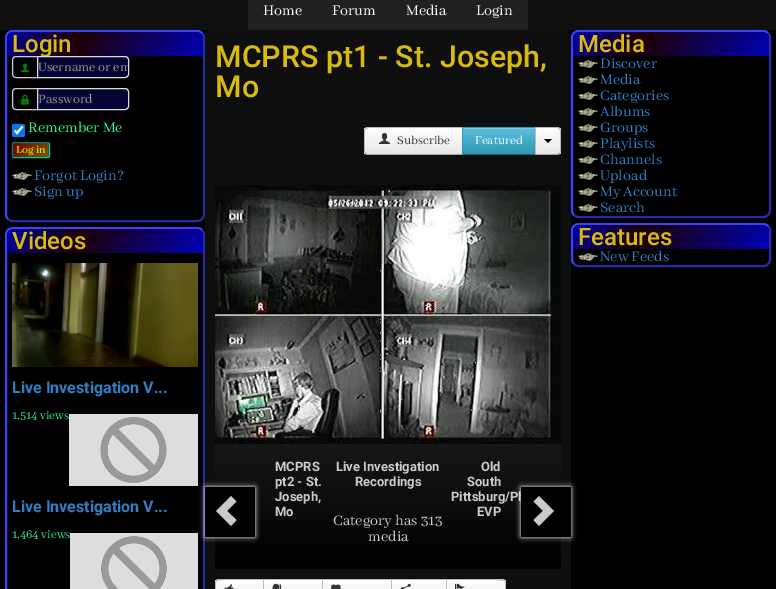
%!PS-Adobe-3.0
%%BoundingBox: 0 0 776 589
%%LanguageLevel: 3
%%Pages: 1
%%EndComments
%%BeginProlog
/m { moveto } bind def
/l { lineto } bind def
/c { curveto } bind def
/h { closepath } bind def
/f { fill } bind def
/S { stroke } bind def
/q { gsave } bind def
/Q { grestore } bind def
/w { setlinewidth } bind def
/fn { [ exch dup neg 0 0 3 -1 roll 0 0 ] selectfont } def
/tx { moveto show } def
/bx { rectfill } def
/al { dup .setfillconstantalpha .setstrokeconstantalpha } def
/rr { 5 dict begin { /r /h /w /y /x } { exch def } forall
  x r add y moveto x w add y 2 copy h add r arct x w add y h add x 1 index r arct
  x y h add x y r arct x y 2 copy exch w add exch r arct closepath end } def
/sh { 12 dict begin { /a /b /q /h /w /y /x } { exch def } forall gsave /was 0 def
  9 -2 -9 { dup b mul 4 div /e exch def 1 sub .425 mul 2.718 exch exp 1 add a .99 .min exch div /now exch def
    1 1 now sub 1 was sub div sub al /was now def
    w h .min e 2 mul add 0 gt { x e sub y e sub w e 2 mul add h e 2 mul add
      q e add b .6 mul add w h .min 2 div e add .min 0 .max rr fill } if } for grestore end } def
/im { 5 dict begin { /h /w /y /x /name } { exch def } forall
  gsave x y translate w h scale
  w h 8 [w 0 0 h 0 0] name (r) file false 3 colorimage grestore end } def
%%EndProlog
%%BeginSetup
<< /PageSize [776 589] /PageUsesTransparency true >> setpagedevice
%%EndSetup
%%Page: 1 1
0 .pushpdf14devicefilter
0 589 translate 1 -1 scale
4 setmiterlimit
0 setgray
0 0 776 589 bx
0.063 setgray
0 0 776 30 bx
0.125 setgray
248 0 280 30 bx
/AbhayaLibre-Regular 16 fn
1 setgray
(Home) 263 15 tx
(Forum) 332 15 tx
(Media) 406 15 tx
(Login) 476 15 tx
0.169 0.169 0.667 setrgbcolor
2 w
202 33 m 203.5 34.5 204 36 204 38 c 204 214 l 204 216 203.5 217.5 202 219 c 200.5 220.5 199 221 197 221 c 13 221 l 11 221 9.5 220.5 8 219 c S
0.251 0.251 1 setrgbcolor
8 219 m 6.5 217.5 6 216 6 214 c 6 38 l 6 36 6.5 34.5 8 33 c 9.5 31.5 11 31 13 31 c 197 31 l 199 31 200.5 31.5 202 33 c S
q 15 32 m 195 32 l 199.5 32 203 35.5 203 40 c 203 56 l 7 56 l 7 40 l 7 35.5 10.5 32 15 32 c h clip newpath
<< /ShadingType 2 /ColorSpace /DeviceRGB /Coords [26 -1.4 184 89] /Extend [true true] /Function << /FunctionType 3 /Domain [0 1] /Functions [<< /FunctionType 2 /Domain [0 1] /C0 [0 0 0.627] /C1 [0.118 0 0] /N 1 >> << /FunctionType 2 /Domain [0 1] /C0 [0.118 0 0] /C1 [0 0 0.706] /N 1 >>] /Bounds [0.35] /Encode [0 1 0 1] >> >> shfill Q
/Roboto-Medium 24 fn
0.851 0.733 0.051 setrgbcolor
(Login) 12 52 tx
0.8 setgray
1 w
16 56.5 m 37.5 56.5 l 37.5 77.5 l 16 77.5 l 14 77.5 12.5 76 12.5 74 c 12.5 60 l 12.5 58 14 56.5 16 56.5 c h S
(image0.raw) 20 63 10 9 im
0.02 0.02 0.208 setrgbcolor
37 56 m 125 56 l 127 56 129 58 129 60 c 129 74 l 129 76 127 78 125 78 c 37 78 l h f
0.02 0.02 0.192 setrgbcolor
38 58 m 125 58 l 127 58 128 59 128 61 c 128 60 l 128 58 127 57 125 57 c 38 57 l h f
0.867 setgray
37.5 56.5 m 125 56.5 l 127 56.5 128.5 58 128.5 60 c 128.5 74 l 128.5 76 127 77.5 125 77.5 c 37.5 77.5 l h S
q
38 57 m 125 57 l 126.5 57 128 58.5 128 60 c 128 74 l 128 75.5 126.5 77 125 77 c 38 77 l h clip newpath
/AbhayaLibre-Regular 14 fn
0.6 setgray
(Username or em) 38 71 tx
Q
0.8 setgray
16 88.5 m 37.5 88.5 l 37.5 109.5 l 16 109.5 l 14 109.5 12.5 108 12.5 106 c 12.5 92 l 12.5 90 14 88.5 16 88.5 c h S
(image1.raw) 21 94 8 11 im
0.02 0.02 0.208 setrgbcolor
37 88 m 125 88 l 127 88 129 90 129 92 c 129 106 l 129 108 127 110 125 110 c 37 110 l h f
0.02 0.02 0.192 setrgbcolor
38 90 m 125 90 l 127 90 128 91 128 93 c 128 92 l 128 90 127 89 125 89 c 38 89 l h f
0.867 setgray
37.5 88.5 m 125 88.5 l 127 88.5 128.5 90 128.5 92 c 128.5 106 l 128.5 108 127 109.5 125 109.5 c 37.5 109.5 l h S
/AbhayaLibre-Regular 14 fn
0.6 setgray
(Password) 38 103 tx
0 0.459 1 setrgbcolor
12 124 13 13 2 rr f
1 setgray
2.1 w
14.5 130.5 m 17 133 l 22.5 126.5 l S
/AbhayaLibre-Regular 16 fn
0.188 0.949 0.557 setrgbcolor
(Remember Me) 28 132 tx
q 12 142 m 13 142 l 13 143 l 12 143 l h clip newpath
<< /ShadingType 2 /ColorSpace /DeviceRGB /Coords [-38 194 -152 79] /Extend [true true] /Function << /FunctionType 3 /Domain [0 1] /Functions [<< /FunctionType 2 /Domain [0 1] /C0 [0 0 0.439] /C1 [0 0.439 0.439] /N 1 >> << /FunctionType 2 /Domain [0 1] /C0 [0 0.439 0.439] /C1 [0 0.439 0] /N 1 >> << /FunctionType 2 /Domain [0 1] /C0 [0 0.439 0] /C1 [0.439 0.439 0] /N 1 >> << /FunctionType 2 /Domain [0 1] /C0 [0.439 0.439 0] /C1 [0.439 0 0] /N 1 >>] /Bounds [0.25 0.5 0.75] /Encode [0 1 0 1 0 1 0 1] >> >> shfill Q
q 13 143 m 50 143 l 50 157 l 13 157 l h clip newpath
<< /ShadingType 2 /ColorSpace /DeviceRGB /Coords [179 208 64 93] /Extend [true true] /Function << /FunctionType 3 /Domain [0 1] /Functions [<< /FunctionType 2 /Domain [0 1] /C0 [0 0 0.439] /C1 [0 0.439 0.439] /N 1 >> << /FunctionType 2 /Domain [0 1] /C0 [0 0.439 0.439] /C1 [0 0.439 0] /N 1 >> << /FunctionType 2 /Domain [0 1] /C0 [0 0.439 0] /C1 [0.439 0.439 0] /N 1 >> << /FunctionType 2 /Domain [0 1] /C0 [0.439 0.439 0] /C1 [0.439 0 0] /N 1 >>] /Bounds [0.25 0.5 0.75] /Encode [0 1 0 1 0 1 0 1] >> >> shfill Q
q 12 157 m 13 157 l 13 158 l 12 158 l h clip newpath
<< /ShadingType 2 /ColorSpace /DeviceRGB /Coords [-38 222 -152 107] /Extend [true true] /Function << /FunctionType 3 /Domain [0 1] /Functions [<< /FunctionType 2 /Domain [0 1] /C0 [0 0 0.439] /C1 [0 0.439 0.439] /N 1 >> << /FunctionType 2 /Domain [0 1] /C0 [0 0.439 0.439] /C1 [0 0.439 0] /N 1 >> << /FunctionType 2 /Domain [0 1] /C0 [0 0.439 0] /C1 [0.439 0.439 0] /N 1 >> << /FunctionType 2 /Domain [0 1] /C0 [0.439 0.439 0] /C1 [0.439 0 0] /N 1 >>] /Bounds [0.25 0.5 0.75] /Encode [0 1 0 1 0 1 0 1] >> >> shfill Q
0 0.745 0.745 setrgbcolor
1 w
49 143 m 50 144 49.5 148.5 49.5 150 c 49.5 158.5 51 157.5 42.5 157.5 c 14 157.5 l 13 157 l S
0 0.498 0.498 setrgbcolor
13 157 m 12 156 12.5 151.5 12.5 150 c 12.5 141.5 11 142.5 19.5 142.5 c 48 142.5 l 49 143 l S
/AbhayaLibre-Regular 12 fn
1 1 0 setrgbcolor
(Log in) 16 153 tx
(image2.raw) 12 172 20 8 im
/AbhayaLibre-Regular 16 fn
0.192 0.502 0.761 setrgbcolor
(Forgot Login?) 34 180 tx
(image2.raw) 12 188 20 8 im
(Sign up) 34 196 tx
0.169 0.169 0.667 setrgbcolor
2 w
202 230 m 203.5 231.5 204 233 204 235 c 204 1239 l 204 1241 203.5 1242.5 202 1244 c 200.5 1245.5 199 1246 197 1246 c 13 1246 l 11 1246 9.5 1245.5 8 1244 c S
0.251 0.251 1 setrgbcolor
8 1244 m 6.5 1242.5 6 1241 6 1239 c 6 235 l 6 233 6.5 231.5 8 230 c 9.5 228.5 11 228 13 228 c 197 228 l 199 228 200.5 228.5 202 230 c S
q 15 229 m 195 229 l 199.5 229 203 232.5 203 237 c 203 253 l 7 253 l 7 237 l 7 232.5 10.5 229 15 229 c h clip newpath
<< /ShadingType 2 /ColorSpace /DeviceRGB /Coords [26 196 184 286] /Extend [true true] /Function << /FunctionType 3 /Domain [0 1] /Functions [<< /FunctionType 2 /Domain [0 1] /C0 [0 0 0.627] /C1 [0.118 0 0] /N 1 >> << /FunctionType 2 /Domain [0 1] /C0 [0.118 0 0] /C1 [0 0 0.706] /N 1 >>] /Bounds [0.35] /Encode [0 1 0 1] >> >> shfill Q
/Roboto-Medium 24 fn
0.851 0.733 0.051 setrgbcolor
(Videos) 12 249 tx
(image3.raw) 12 263 186 104 im
/Roboto-Bold 16 fn
0.192 0.502 0.761 setrgbcolor
(Live Investigation V...) 12 393 tx
/AbhayaLibre-Regular 13 fn
0.188 0.949 0.557 setrgbcolor
(1,514 views) 12 419 tx
(image4.raw) 69 414 129 72 im
/Roboto-Bold 16 fn
0.192 0.502 0.761 setrgbcolor
(Live Investigation V...) 12 512 tx
/AbhayaLibre-Regular 13 fn
0.188 0.949 0.557 setrgbcolor
(1,464 views) 12 538 tx
(image5.raw) 70 533 128 56 im
0.055 setgray
205 30 366 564 5 rr f
/Roboto-Medium 30.4 fn
0.851 0.733 0.051 setrgbcolor
(MCPRS pt1 - St. Joseph,) 215 67 tx
(Mo) 215 97 tx
0.961 setgray
368 127 m 463 127 l 463 155 l 368 155 l 366 155 364 153 364 151 c 364 131 l 364 129 366 127 368 127 c h f
q
368 127 m 463 127 l 463 155 l 368 155 l 366 155 364 153 364 151 c 364 131 l 364 129 366 127 368 127 c h clip newpath
q 364 128 m 462 128 l 462 154 l 364 154 l h clip newpath
<< /ShadingType 2 /ColorSpace /DeviceRGB /Coords [656 128 656 154] /Extend [true true] /Function << /FunctionType 2 /Domain [0 1] /C0 [1 1 1] /C1 [0.902 0.902 0.902] /N 1 >> >> shfill Q
Q
0.733 setgray
368 127 m 365 128 l 366 129 l 368 128 l 462 128 l 463 127 l h f
0.635 setgray
463 155 m 462 154 l 368 154 l 366 153 l 365 154 l 368 155 l h f
0.733 setgray
364 131 m 364 151 l 364 152 364.5 153 365 154 c 366 153 l 365 153 365 152 365 151 c 365 131 l 365 130 365 129 366 129 c 365 128 l 364.5 129 364 130 364 131 c h f
(image6.raw) 378 133 13 11 im
/AbhayaLibre-Regular 13 fn
0.2 setgray
(Subscribe) 397 144 tx
q 463 129 m 535 129 l 535 154 l 463 154 l h clip newpath
<< /ShadingType 2 /ColorSpace /DeviceRGB /Coords [679 128 679 154] /Extend [true true] /Function << /FunctionType 2 /Domain [0 1] /C0 [0.357 0.753 0.871] /C1 [0.184 0.588 0.706] /N 1 >> >> shfill Q
0.482 0.8 0.894 setrgbcolor
463 128 72 1 bx
0.184 0.588 0.706 setrgbcolor
462 127 74 1 bx
0.122 0.388 0.467 setrgbcolor
462 154 74 1 bx
0.184 0.588 0.706 setrgbcolor
462 127 1 28 bx
1 setgray
(Featured) 475 144 tx
q
535 127 m 557 127 l 559 127 561 129 561 131 c 561 151 l 561 153 559 155 557 155 c 535 155 l h clip newpath
q 536 128 m 561 128 l 561 154 l 536 154 l h clip newpath
<< /ShadingType 2 /ColorSpace /DeviceRGB /Coords [608 128 608 154] /Extend [true true] /Function << /FunctionType 2 /Domain [0 1] /C0 [1 1 1] /C1 [0.902 0.902 0.902] /N 1 >> >> shfill Q
Q
536 129 m 557 129 l 559 129 560 130 560 132 c 560 126 554.5 128 550 128 c 536 128 l h f
0.12 al
536 150 1 4 bx
1 al
0.733 setgray
535 127 m 536 128 l 557 128 l 558 128 558.5 128.5 559 129 c 560 128 l 559 127.5 558 127 557 127 c h f
561 151 m 561 131 l 561 130 560.5 129 560 128 c 559 129 l 559.5 129.5 560 130 560 131 c 560 151 l 560 152 559.5 152.5 559 153 c 560 154 l 560.5 153 561 152 561 151 c h f
0.635 setgray
557 155 m 558 155 559 154.5 560 154 c 559 153 l 558.5 153.5 558 154 557 154 c 536 154 l 535 155 l h f
0.733 setgray
536 128 m 535 127 l 535 155 l 536 154 l h f
0 setgray
544 139 m 552 139 l 548 143 l h f
q 215 444 m 561 444 l 561 569 l 215 569 l h clip newpath
<< /ShadingType 2 /ColorSpace /DeviceRGB /Coords [388 185 388 569] /Extend [true true] /Function << /FunctionType 2 /Domain [0 1] /C0 [0.271 0.282 0.302] /C1 [0 0 0] /N 1 >> >> shfill Q
(image7.raw) 215 185 346 259 im
1 setgray
205 487 50 50 0 2.5 1 sh
0 setgray
205 487 50 50 bx
0.792 setgray
231 526 m 216 511 l 231 496 l 236.5 501.5 l 227 511 l 236.5 520 l h f
/Roboto-Bold 13 fn
(MCPRS) 275 471 tx
(pt2 - St.) 275 486 tx
(Joseph,) 275 501 tx
(Mo) 275 516 tx
(Live Investigation) 336 471 tx
(Recordings) 355 486 tx
/AbhayaLibre-Regular 16 fn
(Category has 313) 333 525 tx
(media) 368 541 tx
/Roboto-Bold 13 fn
(Old) 481 471 tx
(South) 467 486 tx
(Pittsburg/Ph) 451 501 tx
(EVP) 477 516 tx
1 setgray
521 487 50 50 0 2.5 1 sh
0 setgray
521 487 50 50 bx
0.792 setgray
539 496 m 554 511 l 539 526 l 533.5 520 l 543 511 l 533.5 501.5 l h f
0.961 setgray
219 579 m 264 579 l 264 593 l 219 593 l 217 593 215 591 215 589 c 215 583 l 215 581 217 579 219 579 c h f
q
219 579 m 264 579 l 264 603 l 219 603 l 217 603 215 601 215 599 c 215 583 l 215 581 217 579 219 579 c h clip newpath
q 215 580 m 263 580 l 263 589 l 215 589 l h clip newpath
<< /ShadingType 2 /ColorSpace /DeviceRGB /Coords [357 580 357 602] /Extend [true true] /Function << /FunctionType 2 /Domain [0 1] /C0 [1 1 1] /C1 [0.902 0.902 0.902] /N 1 >> >> shfill Q
Q
0.733 setgray
219 579 m 216 580 l 217 581 l 219 579 258 580 263 580 c 264 579 l h f
215 583 m 215 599 l 215 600 215.5 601 216 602 c 217 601 l 215 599.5 216 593 216 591 c 216 589 215 582.5 217 581 c 216 580 l 215.5 581 215 582 215 583 c h f
(image8.raw) 224 583 10 6 im
q 264 580 m 322 580 l 322 589 l 264 589 l h clip newpath
<< /ShadingType 2 /ColorSpace /DeviceRGB /Coords [438 580 438 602] /Extend [true true] /Function << /FunctionType 2 /Domain [0 1] /C0 [1 1 1] /C1 [0.902 0.902 0.902] /N 1 >> >> shfill Q
263 579 184 1 bx
263 579 1 10 bx
(image9.raw) 272 583 10 6 im
q 323 580 m 391 580 l 391 589 l 323 589 l h clip newpath
<< /ShadingType 2 /ColorSpace /DeviceRGB /Coords [527 580 527 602] /Extend [true true] /Function << /FunctionType 2 /Domain [0 1] /C0 [1 1 1] /C1 [0.902 0.902 0.902] /N 1 >> >> shfill Q
322 579 1 10 bx
(image10.raw) 331 584 10 5 im
q 392 580 m 446 580 l 446 589 l 392 589 l h clip newpath
<< /ShadingType 2 /ColorSpace /DeviceRGB /Coords [554 580 554 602] /Extend [true true] /Function << /FunctionType 2 /Domain [0 1] /C0 [1 1 1] /C1 [0.902 0.902 0.902] /N 1 >> >> shfill Q
391 579 1 10 bx
(image11.raw) 401 583 10 6 im
0.961 setgray
446 579 m 502 579 l 504 579 506 581 506 583 c 506 589 l 506 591 504 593 502 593 c 446 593 l h f
q
446 579 m 502 579 l 504 579 506 581 506 583 c 506 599 l 506 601 504 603 502 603 c 446 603 l h clip newpath
q 447 580 m 506 580 l 506 589 l 447 589 l h clip newpath
<< /ShadingType 2 /ColorSpace /DeviceRGB /Coords [621 580 621 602] /Extend [true true] /Function << /FunctionType 2 /Domain [0 1] /C0 [1 1 1] /C1 [0.902 0.902 0.902] /N 1 >> >> shfill Q
Q
0.733 setgray
446 579 m 447 580 l 453 580 502 579 504 581 c 505 580 l 502 579 l h f
506 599 m 506 583 l 506 582 505.5 581 505 580 c 504 581 l 506 582.5 505 589 505 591 c 505 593 506 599.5 504 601 c 505 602 l 505.5 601 506 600 506 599 c h 446 579 m 446 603 l 447 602 l 447 580 l h f
(image12.raw) 455 583 10 6 im
0.169 0.169 0.667 setrgbcolor
768 33 m 769.5 34.5 770 36 770 38 c 770 210 l 770 212 769.5 213.5 768 215 c 766.5 216.5 765 217 763 217 c 579 217 l 577 217 575.5 216.5 574 215 c S
0.251 0.251 1 setrgbcolor
574 215 m 572.5 213.5 572 212 572 210 c 572 38 l 572 36 572.5 34.5 574 33 c 575.5 31.5 577 31 579 31 c 763 31 l 765 31 766.5 31.5 768 33 c S
q 581 32 m 761 32 l 765.5 32 769 35.5 769 40 c 769 56 l 573 56 l 573 40 l 573 35.5 576.5 32 581 32 c h clip newpath
<< /ShadingType 2 /ColorSpace /DeviceRGB /Coords [592 -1.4 750 89] /Extend [true true] /Function << /FunctionType 3 /Domain [0 1] /Functions [<< /FunctionType 2 /Domain [0 1] /C0 [0 0 0.627] /C1 [0.118 0 0] /N 1 >> << /FunctionType 2 /Domain [0 1] /C0 [0.118 0 0] /C1 [0 0 0.706] /N 1 >>] /Bounds [0.35] /Encode [0 1 0 1] >> >> shfill Q
/Roboto-Medium 24 fn
0.851 0.733 0.051 setrgbcolor
(Media) 578 52 tx
(image2.raw) 578 60 20 8 im
/AbhayaLibre-Regular 16 fn
0.192 0.502 0.761 setrgbcolor
(Discover) 600 68 tx
(image2.raw) 578 76 20 8 im
(Media) 600 84 tx
(image2.raw) 578 92 20 8 im
(Categories) 600 100 tx
(image2.raw) 578 108 20 8 im
(Albums) 600 116 tx
(image2.raw) 578 124 20 8 im
(Groups) 600 132 tx
(image2.raw) 578 140 20 8 im
(Playlists) 600 148 tx
(image2.raw) 578 156 20 8 im
(Channels) 600 164 tx
(image2.raw) 578 172 20 8 im
(Upload) 600 180 tx
(image2.raw) 578 188 20 8 im
(My Account) 600 196 tx
(image2.raw) 578 204 20 8 im
(Search) 600 212 tx
0.169 0.169 0.667 setrgbcolor
768 226 m 769.5 227.5 770 229 770 231 c 770 259 l 770 261 769.5 262.5 768 264 c 766.5 265.5 765 266 763 266 c 579 266 l 577 266 575.5 265.5 574 264 c S
0.251 0.251 1 setrgbcolor
574 264 m 572.5 262.5 572 261 572 259 c 572 231 l 572 229 572.5 227.5 574 226 c 575.5 224.5 577 224 579 224 c 763 224 l 765 224 766.5 224.5 768 226 c S
q 581 225 m 761 225 l 765.5 225 769 228.5 769 233 c 769 249 l 573 249 l 573 233 l 573 228.5 576.5 225 581 225 c h clip newpath
<< /ShadingType 2 /ColorSpace /DeviceRGB /Coords [592 192 750 282] /Extend [true true] /Function << /FunctionType 3 /Domain [0 1] /Functions [<< /FunctionType 2 /Domain [0 1] /C0 [0 0 0.627] /C1 [0.118 0 0] /N 1 >> << /FunctionType 2 /Domain [0 1] /C0 [0.118 0 0] /C1 [0 0 0.706] /N 1 >>] /Bounds [0.35] /Encode [0 1 0 1] >> >> shfill Q
/Roboto-Medium 24 fn
0.851 0.733 0.051 setrgbcolor
(Features) 578 245 tx
(image2.raw) 578 253 20 8 im
/AbhayaLibre-Regular 16 fn
0.192 0.502 0.761 setrgbcolor
(New Feeds) 600 261 tx
.poppdf14devicefilter showpage
%%EOF
